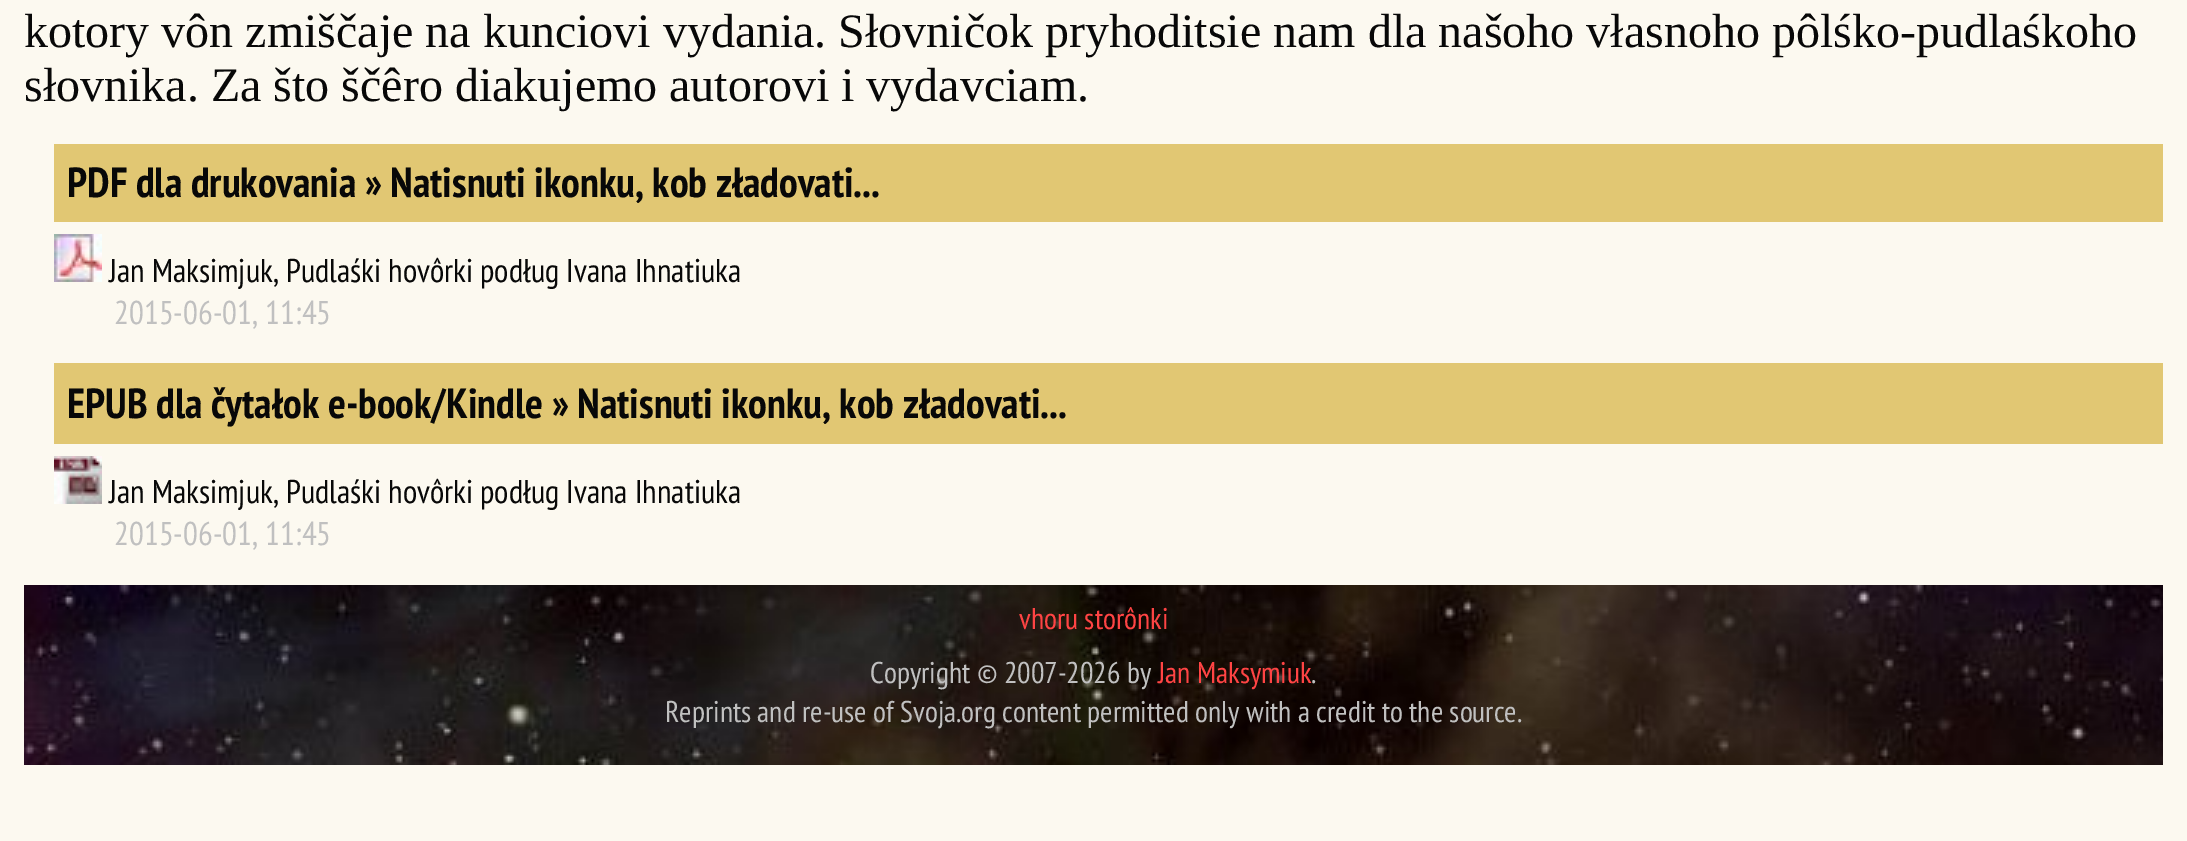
%!PS-Adobe-3.0
%%BoundingBox: 0 0 2187 841
%%LanguageLevel: 3
%%Pages: 1
%%EndComments
%%BeginProlog
/fn { [ exch dup neg 0 0 3 -1 roll 0 0 ] selectfont } def
/tx { moveto show } def
/bx { rectfill } def
/im { 5 dict begin { /h /w /y /x /name } { exch def } forall
  gsave x y translate w h scale
  w h 8 [w 0 0 h 0 0] name (r) file false 3 colorimage grestore end } def
%%EndProlog
%%BeginSetup
<< /PageSize [2187 841] >> setpagedevice
%%EndSetup
%%Page: 1 1
0 841 translate 1 -1 scale
4 setmiterlimit
0.988 0.976 0.941 setrgbcolor
0 0 2187 841 bx
/LiberationSerif-Regular 48 fn
0.031 setgray
(kotory vôn zmiščaje na kunciovi vydania. Słovničok pryhoditsie nam dla našoho vłasnoho pôlśko-pudlaśkoho) 24 47 tx
(słovnika. Za što ščêro diakujemo autorovi i vydavciam.) 24 101 tx
0.882 0.78 0.451 setrgbcolor
54 144 2109 78 bx
/PTSansNarrow-Bold 42 fn
0.031 setgray
(PDF dla drukovania » Natisnuti ikonku, kob zładovati...) 67 197 tx
(image0.raw) 54 234 48 48 im
/PTSansNarrow-Regular 33 fn
(Jan Maksimjuk, Pudlaśki hovôrki podług Ivana Ihnatiuka) 109 282 tx
0.753 setgray
(2015-06-01, 11:45) 114 324 tx
0.882 0.78 0.451 setrgbcolor
54 363 2109 81 bx
/PTSansNarrow-Bold 42 fn
0.031 setgray
(EPUB dla čytałok e-book/Kindle » Natisnuti ikonku, kob zładovati...) 67 418 tx
(image1.raw) 54 456 48 48 im
/PTSansNarrow-Regular 33 fn
(Jan Maksimjuk, Pudlaśki hovôrki podług Ivana Ihnatiuka) 109 503 tx
0.753 setgray
(2015-06-01, 11:45) 114 545 tx
(image2.raw) 24 585 2139 180 im
/PTSansNarrow-Regular 30 fn
1 0.267 0.267 setrgbcolor
(vhoru storônki) 1019 629 tx
0.753 setgray
(Copyright © 2007-2026 by) 870 683 tx
1 0.267 0.267 setrgbcolor
(Jan Maksymiuk) 1158 683 tx
0.753 setgray
(.) 1311 683 tx
(Reprints and re-use of Svoja.org content permitted only with a credit to the source.) 665 722 tx
showpage
%%EOF
